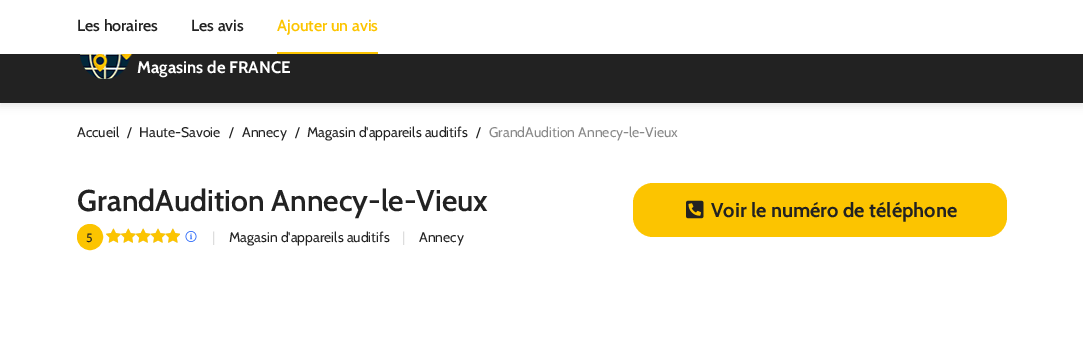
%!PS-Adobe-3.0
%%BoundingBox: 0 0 1083 350
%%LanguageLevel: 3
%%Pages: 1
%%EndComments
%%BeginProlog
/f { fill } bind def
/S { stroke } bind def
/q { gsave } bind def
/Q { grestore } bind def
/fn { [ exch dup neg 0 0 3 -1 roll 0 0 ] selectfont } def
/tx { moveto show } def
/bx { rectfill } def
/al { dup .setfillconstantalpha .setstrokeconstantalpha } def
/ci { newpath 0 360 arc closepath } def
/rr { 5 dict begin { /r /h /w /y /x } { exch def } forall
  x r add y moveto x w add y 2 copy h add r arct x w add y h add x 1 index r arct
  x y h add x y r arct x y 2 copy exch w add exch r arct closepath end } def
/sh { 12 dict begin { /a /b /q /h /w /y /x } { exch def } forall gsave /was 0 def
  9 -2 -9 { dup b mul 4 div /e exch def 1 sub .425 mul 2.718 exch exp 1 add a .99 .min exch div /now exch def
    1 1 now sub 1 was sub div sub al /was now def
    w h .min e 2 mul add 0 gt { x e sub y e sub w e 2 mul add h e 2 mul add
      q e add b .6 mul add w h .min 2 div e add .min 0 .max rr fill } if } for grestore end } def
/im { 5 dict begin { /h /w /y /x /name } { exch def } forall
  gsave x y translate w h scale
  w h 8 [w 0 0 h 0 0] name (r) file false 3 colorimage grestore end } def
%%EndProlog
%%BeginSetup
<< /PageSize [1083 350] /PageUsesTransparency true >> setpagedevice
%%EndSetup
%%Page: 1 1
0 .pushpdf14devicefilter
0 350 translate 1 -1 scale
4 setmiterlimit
1 setgray
0 0 1083 350 bx
0 setgray
0 3 1083 103 0 4 0.1 sh
1 setgray
0 0 1083 54 bx
/Cabin-SemiBold 16 fn
0.133 setgray
(Les horaires) 77 31 tx
(Les avis) 191 31 tx
0.988 0.769 0 setrgbcolor
277 52 101 2 bx
(Ajouter un avis) 277 31 tx
/Cabin-SemiBold 30 fn
0.133 setgray
(GrandAudition Annecy-le-Vieux) 77 211 tx
0.988 0.769 0 setrgbcolor
90 237 12.5 ci q f Q
S
/Cabin-Regular 12 fn
0.133 setgray
(5) 86 242 tx
(image0.raw) 106 228 74 15 im
(image1.raw) 106 228 74 15 im
(image2.raw) 185 231 12 11 im
/Cabin-Regular 14 fn
0.867 setgray
(|) 212 242 tx
0.133 setgray
(Magasin d'appareils auditifs) 229 242 tx
0.867 setgray
(|) 402 242 tx
0.133 setgray
(Annecy) 419 242 tx
0.988 0.769 0 setrgbcolor
633 183 374 54 20 rr f
(image3.raw) 686 200 18 19 im
/Cabin-Bold 20 fn
0.133 setgray
(Voir le numéro de téléphone) 711 217 tx
/Cabin-Regular 14 fn
(Accueil) 77 137 tx
(/) 127 137 tx
(Haute-Savoie) 139 137 tx
(/) 229 137 tx
(Annecy) 242 137 tx
(/) 295 137 tx
(Magasin d'appareils auditifs) 307 137 tx
(/) 476 137 tx
0.533 setgray
(GrandAudition Annecy-le-Vieux) 489 137 tx
0.133 setgray
0 54 1083 49 bx
(image4.raw) 80 54 53 25 im
/Cabin-Bold 16.75 fn
1 setgray
(Magasins de FRANCE) 137 73 tx
.poppdf14devicefilter showpage
%%EOF
